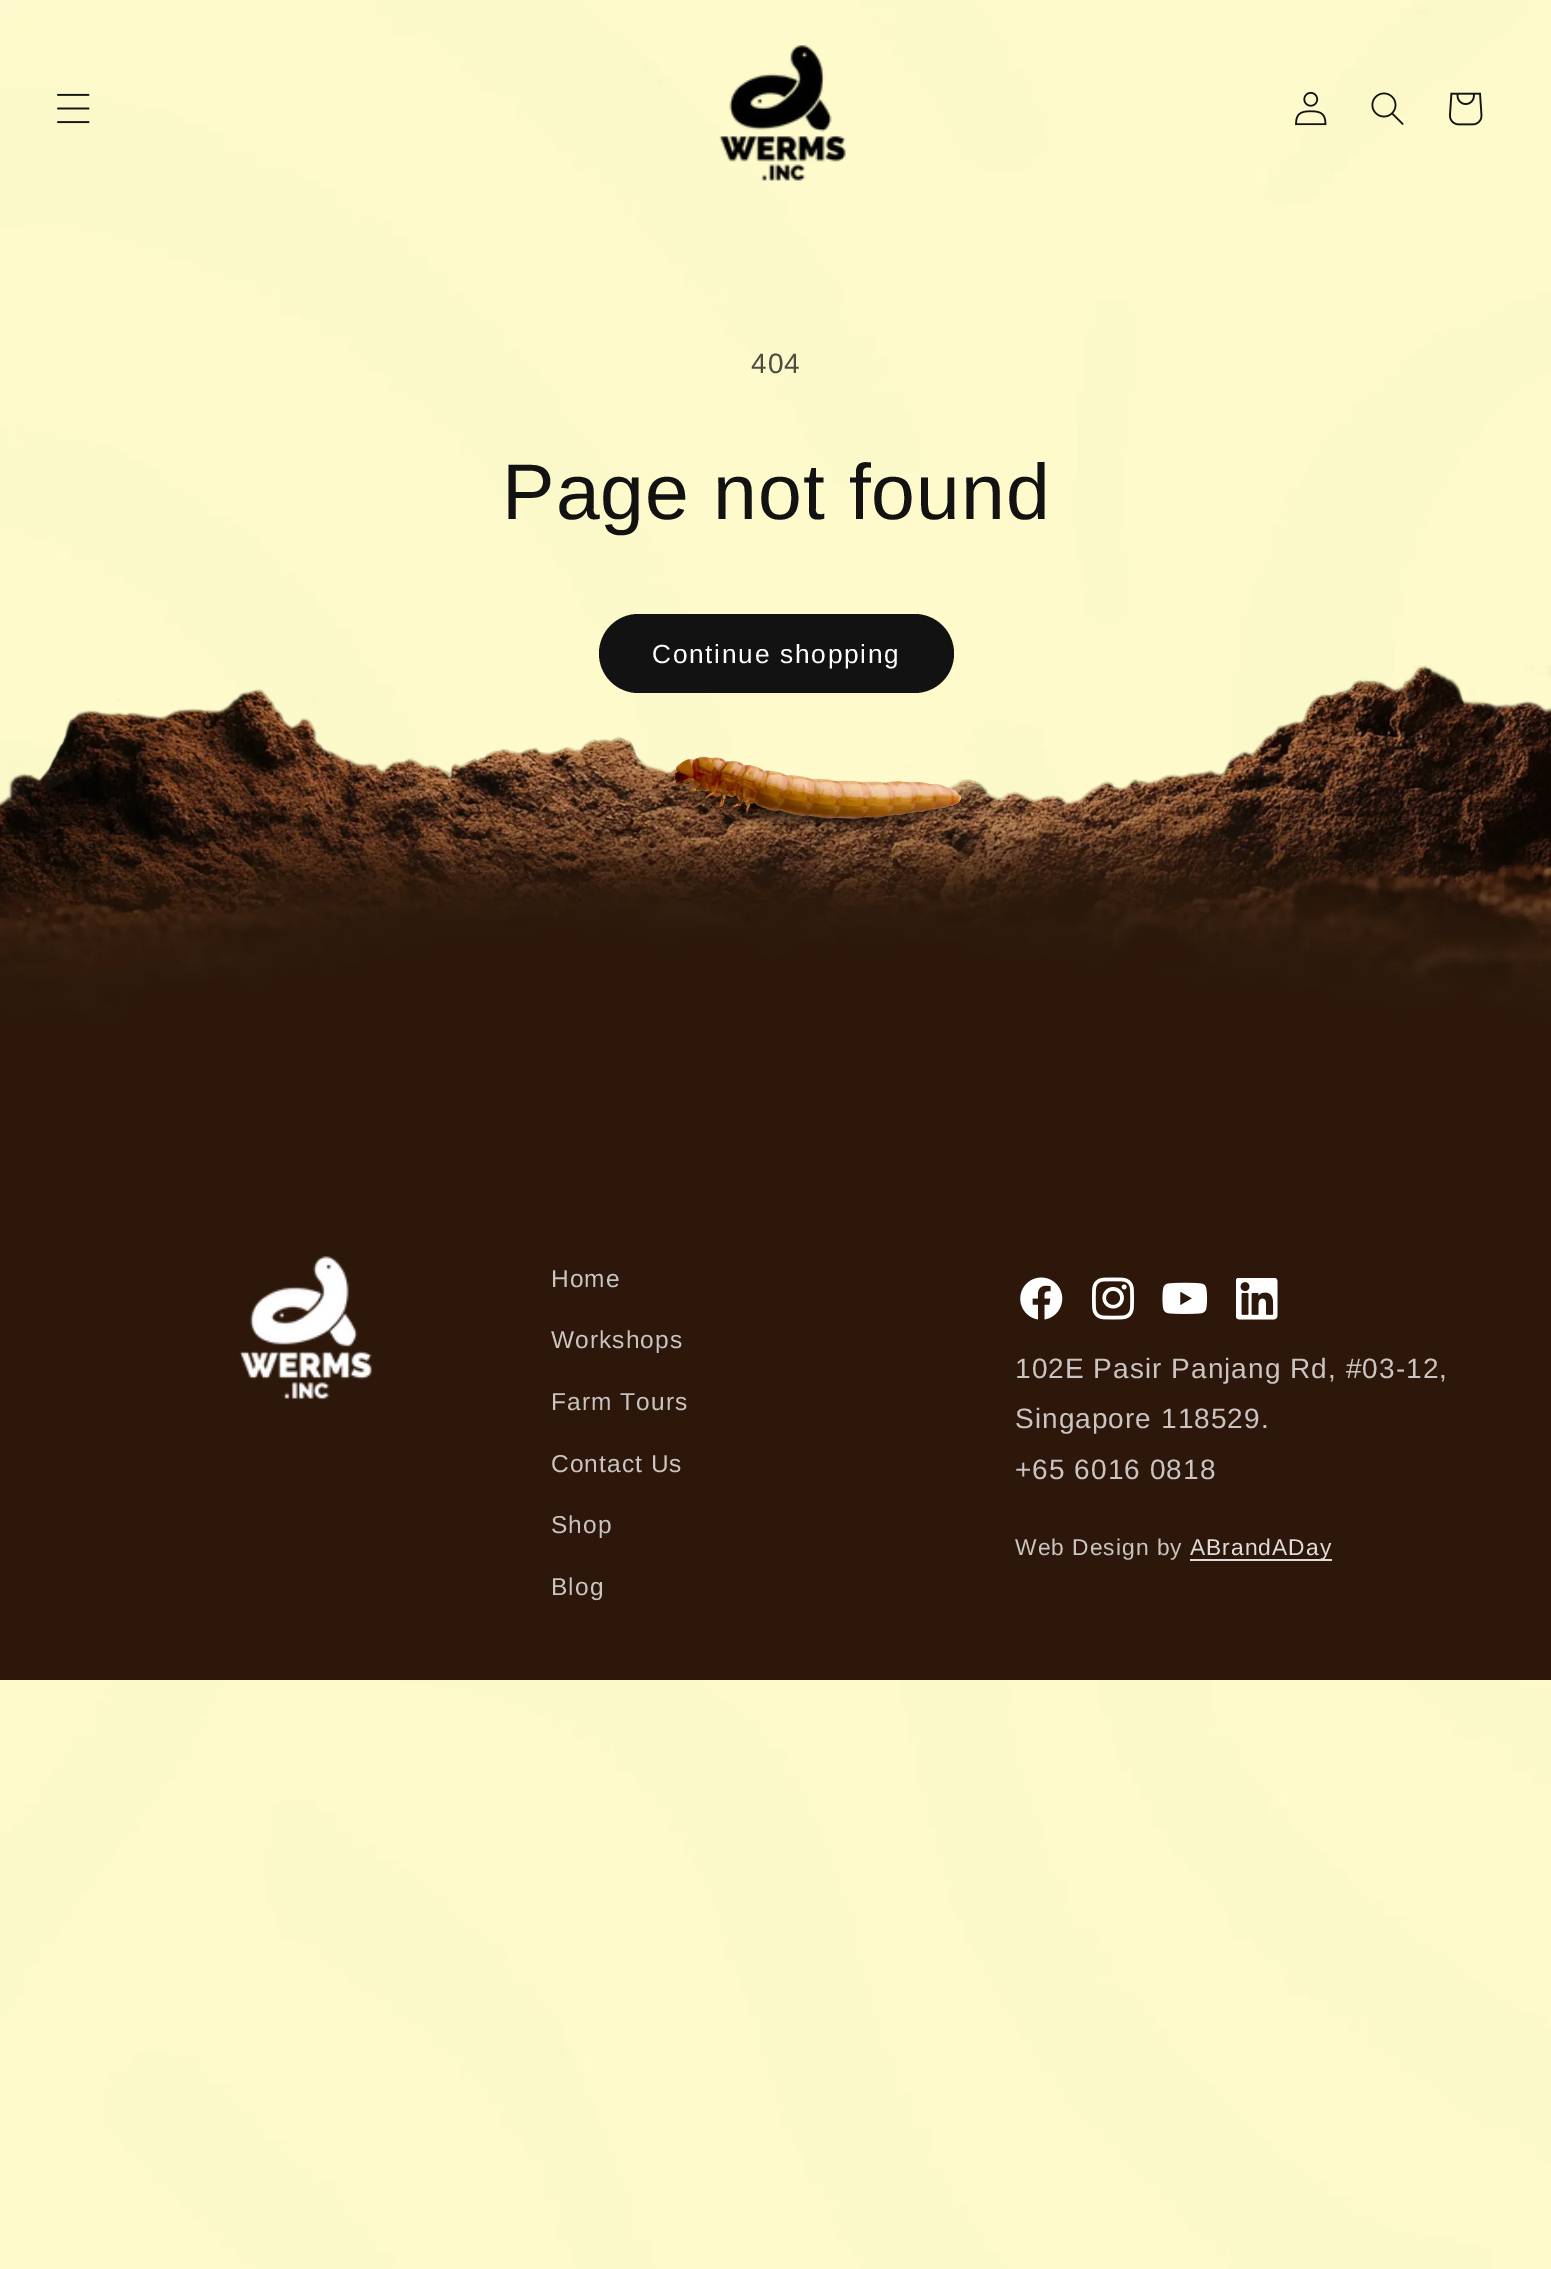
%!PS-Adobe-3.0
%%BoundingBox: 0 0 1551 2269
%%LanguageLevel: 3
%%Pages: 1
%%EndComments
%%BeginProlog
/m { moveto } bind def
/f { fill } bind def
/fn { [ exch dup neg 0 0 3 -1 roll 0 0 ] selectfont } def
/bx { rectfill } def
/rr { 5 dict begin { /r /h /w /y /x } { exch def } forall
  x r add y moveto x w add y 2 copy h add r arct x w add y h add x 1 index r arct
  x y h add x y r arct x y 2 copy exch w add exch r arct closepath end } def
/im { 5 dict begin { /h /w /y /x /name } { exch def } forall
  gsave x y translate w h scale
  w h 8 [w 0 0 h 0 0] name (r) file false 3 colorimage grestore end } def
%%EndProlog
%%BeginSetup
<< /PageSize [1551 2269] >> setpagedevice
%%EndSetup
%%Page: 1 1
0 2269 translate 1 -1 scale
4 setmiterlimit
1 setgray
0 0 1551 2269 bx
(image0.raw) 0 0 1551 2269 im
(image1.raw) 57 93 33 31 im
(image2.raw) 719 45 127 136 im
(image3.raw) 1295 91 32 35 im
(image4.raw) 1371 92 33 33 im
(image5.raw) 1449 92 34 34 im
/LiberationSans-Regular 28 fn
0.298 0.298 0.251 setrgbcolor
751 373 m 1.05 0 (404) ashow
/LiberationSans-Regular 78.75 fn
0.071 setgray
502 519 m 1.05 0 (Page not found) ashow
(image6.raw) 0 665 1551 1015 im
599 614 355 79 39.5 rr f
/LiberationSans-Regular 26.25 fn
1 setgray
652 663 m 1.75 0 (Continue shopping) ashow
(image7.raw) 239 1256 134 144 im
/LiberationSans-Regular 24.5 fn
0.792 0.773 0.761 setrgbcolor
551 1287 m 1.05 0 (Home) ashow
551 1348 m 1.05 0 (Workshops) ashow
551 1410 m 1.05 0 (Farm Tours) ashow
551 1472 m 1.05 0 (Contact Us) ashow
551 1533 m 1.05 0 (Shop) ashow
551 1595 m 1.05 0 (Blog) ashow
(image8.raw) 1020 1277 43 43 im
(image9.raw) 1092 1277 42 43 im
(image10.raw) 1162 1282 46 32 im
(image11.raw) 1236 1278 42 42 im
/LiberationSans-Regular 28 fn
1015 1378 m 1.05 0 (102E Pasir Panjang Rd, #03-12,) ashow
1015 1428 m 1.05 0 (Singapore 118529.) ashow
1015 1479 m 1.05 0 (+65 6016 0818) ashow
/LiberationSans-Regular 22.75 fn
1015 1555 m 1.05 0 (Web Design by) ashow
0.875 0.863 0.855 setrgbcolor
1190 1559 142 2 bx
1190 1555 m 1.05 0 (ABrandADay) ashow
showpage
%%EOF
